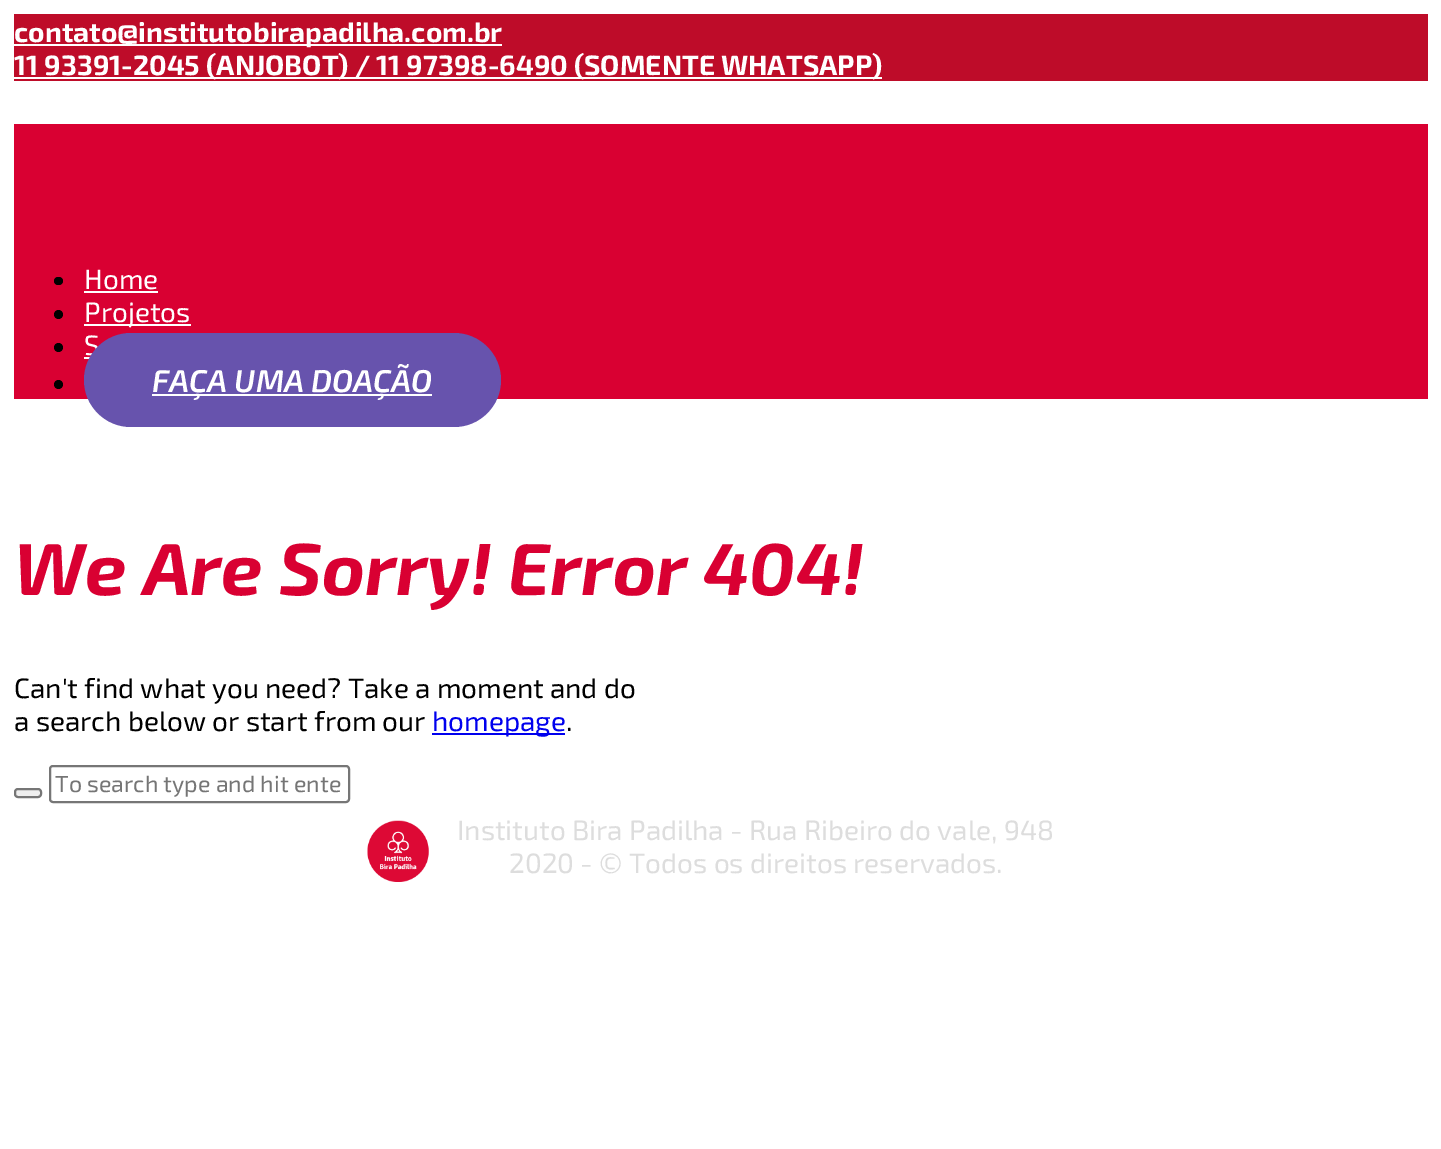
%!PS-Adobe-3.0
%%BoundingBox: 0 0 1441 1149
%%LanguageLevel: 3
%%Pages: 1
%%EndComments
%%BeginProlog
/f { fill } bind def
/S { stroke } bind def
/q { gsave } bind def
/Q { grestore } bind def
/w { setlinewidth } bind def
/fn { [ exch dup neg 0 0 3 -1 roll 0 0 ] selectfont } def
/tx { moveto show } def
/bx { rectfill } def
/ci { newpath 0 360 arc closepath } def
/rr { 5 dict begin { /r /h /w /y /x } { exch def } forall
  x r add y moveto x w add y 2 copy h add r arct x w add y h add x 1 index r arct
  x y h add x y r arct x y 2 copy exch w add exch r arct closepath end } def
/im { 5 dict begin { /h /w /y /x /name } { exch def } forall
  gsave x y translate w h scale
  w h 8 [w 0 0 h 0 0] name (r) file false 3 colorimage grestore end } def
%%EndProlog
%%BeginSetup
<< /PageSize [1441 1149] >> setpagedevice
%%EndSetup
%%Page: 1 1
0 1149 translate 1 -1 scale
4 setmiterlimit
1 setgray
0 0 1441 1149 bx
0.745 0.047 0.161 setrgbcolor
14 14 1414 67 bx
1 setgray
14 44 488 2 bx
/Exo2-Bold 28 fn
(contato@institutobirapadilha.com.br) 14 42 tx
14 77 868 2 bx
(11 93391-2045 \(ANJOBOT\) / 11 97398-6490 \(SOMENTE WHATSAPP\)) 14 75 tx
0.851 0 0.196 setrgbcolor
14 124 1414 275 bx
0 setgray
54 277 9 8 4 rr f
/Exo2-Regular 28 fn
1 setgray
(Home) 84 289 tx
84 291 74 2 bx
0 setgray
58.5 314.5 4.5 ci f
1 setgray
84 324 107 2 bx
(Projetos) 84 322 tx
0 setgray
58.5 347.5 4.5 ci f
1 setgray
(S) 84 355 tx
84 357 6 2 bx
0 setgray
58.5 384.5 4.5 ci f
0.404 0.325 0.678 setrgbcolor
84 333 417 94 47 rr f
1 setgray
152 394 280 2 bx
/Exo2-SemiBoldItalic 31.5 fn
(FAÇA UMA DOAÇÃO) 152 392 tx
/Exo2-BoldItalic 73.5 fn
0.851 0 0.196 setrgbcolor
(We Are Sorry! Error 404!) 14 595 tx
/Exo2-Regular 28 fn
0 setgray
(Can't find what you need? Take a moment and do) 14 698 tx
(a search below or start from our) 14 731 tx
0 0 0.933 setrgbcolor
432 733 133 2 bx
(homepage) 432 731 tx
0 setgray
(.) 566 731 tx
0.937 setgray
15 789 26 8 3 rr q f Q
0.463 setgray
2 w
S
50 766 299 36 3 rr S
/Exo2-Regular 23.25 fn
0.459 setgray
(To search type and hit ente) 55 792 tx
(image0.raw) 367 820 62 62 im
/Exo2-Regular 28 fn
0.867 setgray
(Instituto Bira Padilha - Rua Ribeiro do vale, 948) 457 840 tx
(2020 - © Todos os direitos reservados.) 509 873 tx
showpage
%%EOF
